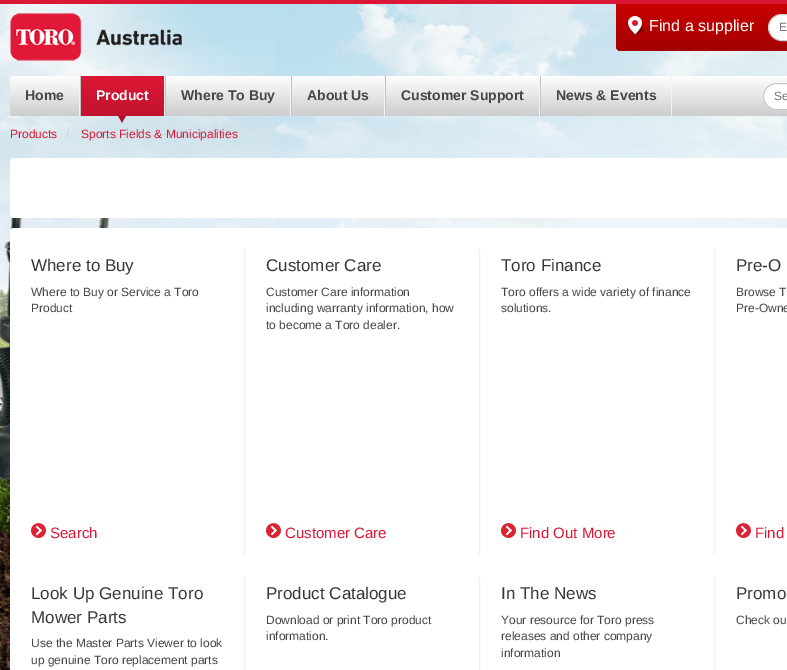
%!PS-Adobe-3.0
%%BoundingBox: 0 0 787 670
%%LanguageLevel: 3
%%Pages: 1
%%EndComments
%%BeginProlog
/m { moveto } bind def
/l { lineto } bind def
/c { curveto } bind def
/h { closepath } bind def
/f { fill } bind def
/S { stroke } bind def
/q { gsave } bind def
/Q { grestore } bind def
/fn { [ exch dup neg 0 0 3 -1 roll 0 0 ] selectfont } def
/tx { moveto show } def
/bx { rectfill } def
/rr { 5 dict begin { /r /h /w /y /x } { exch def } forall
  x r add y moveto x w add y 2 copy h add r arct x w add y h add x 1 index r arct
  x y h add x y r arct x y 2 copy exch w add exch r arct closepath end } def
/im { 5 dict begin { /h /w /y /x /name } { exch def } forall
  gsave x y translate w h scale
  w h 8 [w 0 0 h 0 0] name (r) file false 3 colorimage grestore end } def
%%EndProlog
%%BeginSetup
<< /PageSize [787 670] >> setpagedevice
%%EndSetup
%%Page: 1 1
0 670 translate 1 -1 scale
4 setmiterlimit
0.863 0.09 0.208 setrgbcolor
0 0 787 670 bx
(image0.raw) 0 4 787 666 im
(image1.raw) 10 13 172 48 im
q 616 4 m 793 4 l 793 45 l 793 48.5 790.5 51 787 51 c 622 51 l 618.5 51 616 48.5 616 45 c h clip newpath
<< /ShadingType 2 /ColorSpace /DeviceRGB /Coords [783 4 783 51] /Extend [true true] /Function << /FunctionType 2 /Domain [0 1] /C0 [0.788 0 0] /C1 [0.643 0 0] /N 1 >> >> shfill Q
(image2.raw) 628 16 18 20 im
/LiberationSans-Regular 16 fn
1 setgray
(Find a supplier) 649 31 tx
768.5 14.5 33 26 13 rr q f Q
0.8 setgray
S
/LiberationSans-Regular 12 fn
0.459 setgray
(E) 779 31 tx
q 10 76 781 40 4 rr clip newpath
<< /ShadingType 2 /ColorSpace /DeviceRGB /Coords [480 76 480 116] /Extend [true true] /Function << /FunctionType 2 /Domain [0 1] /C0 [0.996 0.996 0.996] /C1 [0.804 0.804 0.804] /N 1 >> >> shfill Q
q 14 76 m 80 76 l 80 116 l 14 116 l 12 116 10 114 10 112 c 10 80 l 10 78 12 76 14 76 c h clip newpath
<< /ShadingType 2 /ColorSpace /DeviceRGB /Coords [45 76 45 116] /Extend [true true] /Function << /FunctionType 2 /Domain [0 1] /C0 [0.996 0.996 0.996] /C1 [0.804 0.804 0.804] /N 1 >> >> shfill Q
0.957 setgray
79 76 1 40 bx
/LiberationSans-Bold 14 fn
0.275 setgray
(Home) 25 100 tx
q 81 76 m 164 76 l 164 116 l 81 116 l h clip newpath
<< /ShadingType 2 /ColorSpace /DeviceRGB /Coords [123 76 123 116] /Extend [true true] /Function << /FunctionType 2 /Domain [0 1] /C0 [0.863 0.09 0.208] /C1 [0.753 0.078 0.18] /N 1 >> >> shfill Q
0.957 setgray
164 76 1 40 bx
0.769 setgray
80 76 1 40 bx
1 setgray
(Product) 96 100 tx
(image3.raw) 118 116 8 7 im
0.957 setgray
290 76 1 40 bx
0.769 setgray
165 76 1 40 bx
0.275 setgray
(Where To Buy) 181 100 tx
0.957 setgray
384 76 1 40 bx
0.769 setgray
291 76 1 40 bx
0.275 setgray
(About Us) 307 100 tx
0.957 setgray
539 76 1 40 bx
0.769 setgray
385 76 1 40 bx
0.275 setgray
(Customer Support) 401 100 tx
0.957 setgray
671 76 1 40 bx
0.769 setgray
540 76 1 40 bx
0.275 setgray
(News & Events) 556 100 tx
1 setgray
763.5 83.5 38 26 13 rr q f Q
0.8 setgray
S
/LiberationSans-Regular 12 fn
0.459 setgray
(Se) 774 100 tx
0.863 0.09 0.208 setrgbcolor
(Products) 10 138 tx
0.8 setgray
(/) 66 138 tx
0.863 0.09 0.208 setrgbcolor
(Sports Fields & Municipalities) 81 138 tx
1 setgray
10 158 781 60 4 rr f
10 228 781 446 4 rr f
0.945 setgray
243.5 249.5 m 244.5 251 l 244.5 502 l 244.5 552 l 243.5 554.5 l S
/LiberationSans-Regular 17 fn
0.212 setgray
(Where to Buy) 31 271 tx
/LiberationSans-Regular 12 fn
0.275 setgray
(Where to Buy or Service a Toro) 31 296 tx
(Product) 31 312 tx
(image4.raw) 31 523 15 15 im
/LiberationSans-Regular 15 fn
0.863 0.09 0.208 setrgbcolor
(Search) 50 538 tx
0.945 setgray
478.5 249.5 m 479.5 251 l 479.5 502 l 479.5 552 l 478.5 554.5 l S
/LiberationSans-Regular 17 fn
0.212 setgray
(Customer Care) 266 271 tx
/LiberationSans-Regular 12 fn
0.275 setgray
(Customer Care information) 266 296 tx
(including warranty information, how) 266 312 tx
(to become a Toro dealer.) 266 329 tx
(image4.raw) 266 523 15 15 im
/LiberationSans-Regular 15 fn
0.863 0.09 0.208 setrgbcolor
(Customer Care) 285 538 tx
0.945 setgray
713.5 249.5 m 714.5 251 l 714.5 502 l 714.5 552 l 713.5 554.5 l S
/LiberationSans-Regular 17 fn
0.212 setgray
(Toro Finance) 501 271 tx
/LiberationSans-Regular 12 fn
0.275 setgray
(Toro offers a wide variety of finance) 501 296 tx
(solutions.) 501 312 tx
(image4.raw) 501 523 15 15 im
/LiberationSans-Regular 15 fn
0.863 0.09 0.208 setrgbcolor
(Find Out More) 520 538 tx
/LiberationSans-Regular 17 fn
0.212 setgray
(Pre-O) 736 271 tx
/LiberationSans-Regular 12 fn
0.275 setgray
(Browse T) 736 296 tx
(Pre-Owne) 736 312 tx
(image4.raw) 736 523 15 15 im
/LiberationSans-Regular 15 fn
0.863 0.09 0.208 setrgbcolor
(Find) 755 538 tx
0.945 setgray
243.5 577.5 m 244.5 579 l 244.5 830 l 244.5 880 l 243.5 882.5 l S
/LiberationSans-Regular 17 fn
0.212 setgray
(Look Up Genuine Toro) 31 599 tx
(Mower Parts) 31 623 tx
/LiberationSans-Regular 12 fn
0.275 setgray
(Use the Master Parts Viewer to look) 31 647 tx
(up genuine Toro replacement parts) 31 664 tx
0.945 setgray
478.5 577.5 m 479.5 580 l 479.5 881 l 478.5 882.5 l S
/LiberationSans-Regular 17 fn
0.212 setgray
(Product Catalogue) 266 599 tx
/LiberationSans-Regular 12 fn
0.275 setgray
(Download or print Toro product) 266 624 tx
(information.) 266 640 tx
0.945 setgray
713.5 577.5 m 714.5 579 l 714.5 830 l 714.5 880 l 713.5 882.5 l S
/LiberationSans-Regular 17 fn
0.212 setgray
(In The News) 501 599 tx
/LiberationSans-Regular 12 fn
0.275 setgray
(Your resource for Toro press) 501 624 tx
(releases and other company) 501 640 tx
(information) 501 657 tx
/LiberationSans-Regular 17 fn
0.212 setgray
(Promo) 736 599 tx
/LiberationSans-Regular 12 fn
0.275 setgray
(Check ou) 736 624 tx
showpage
%%EOF
